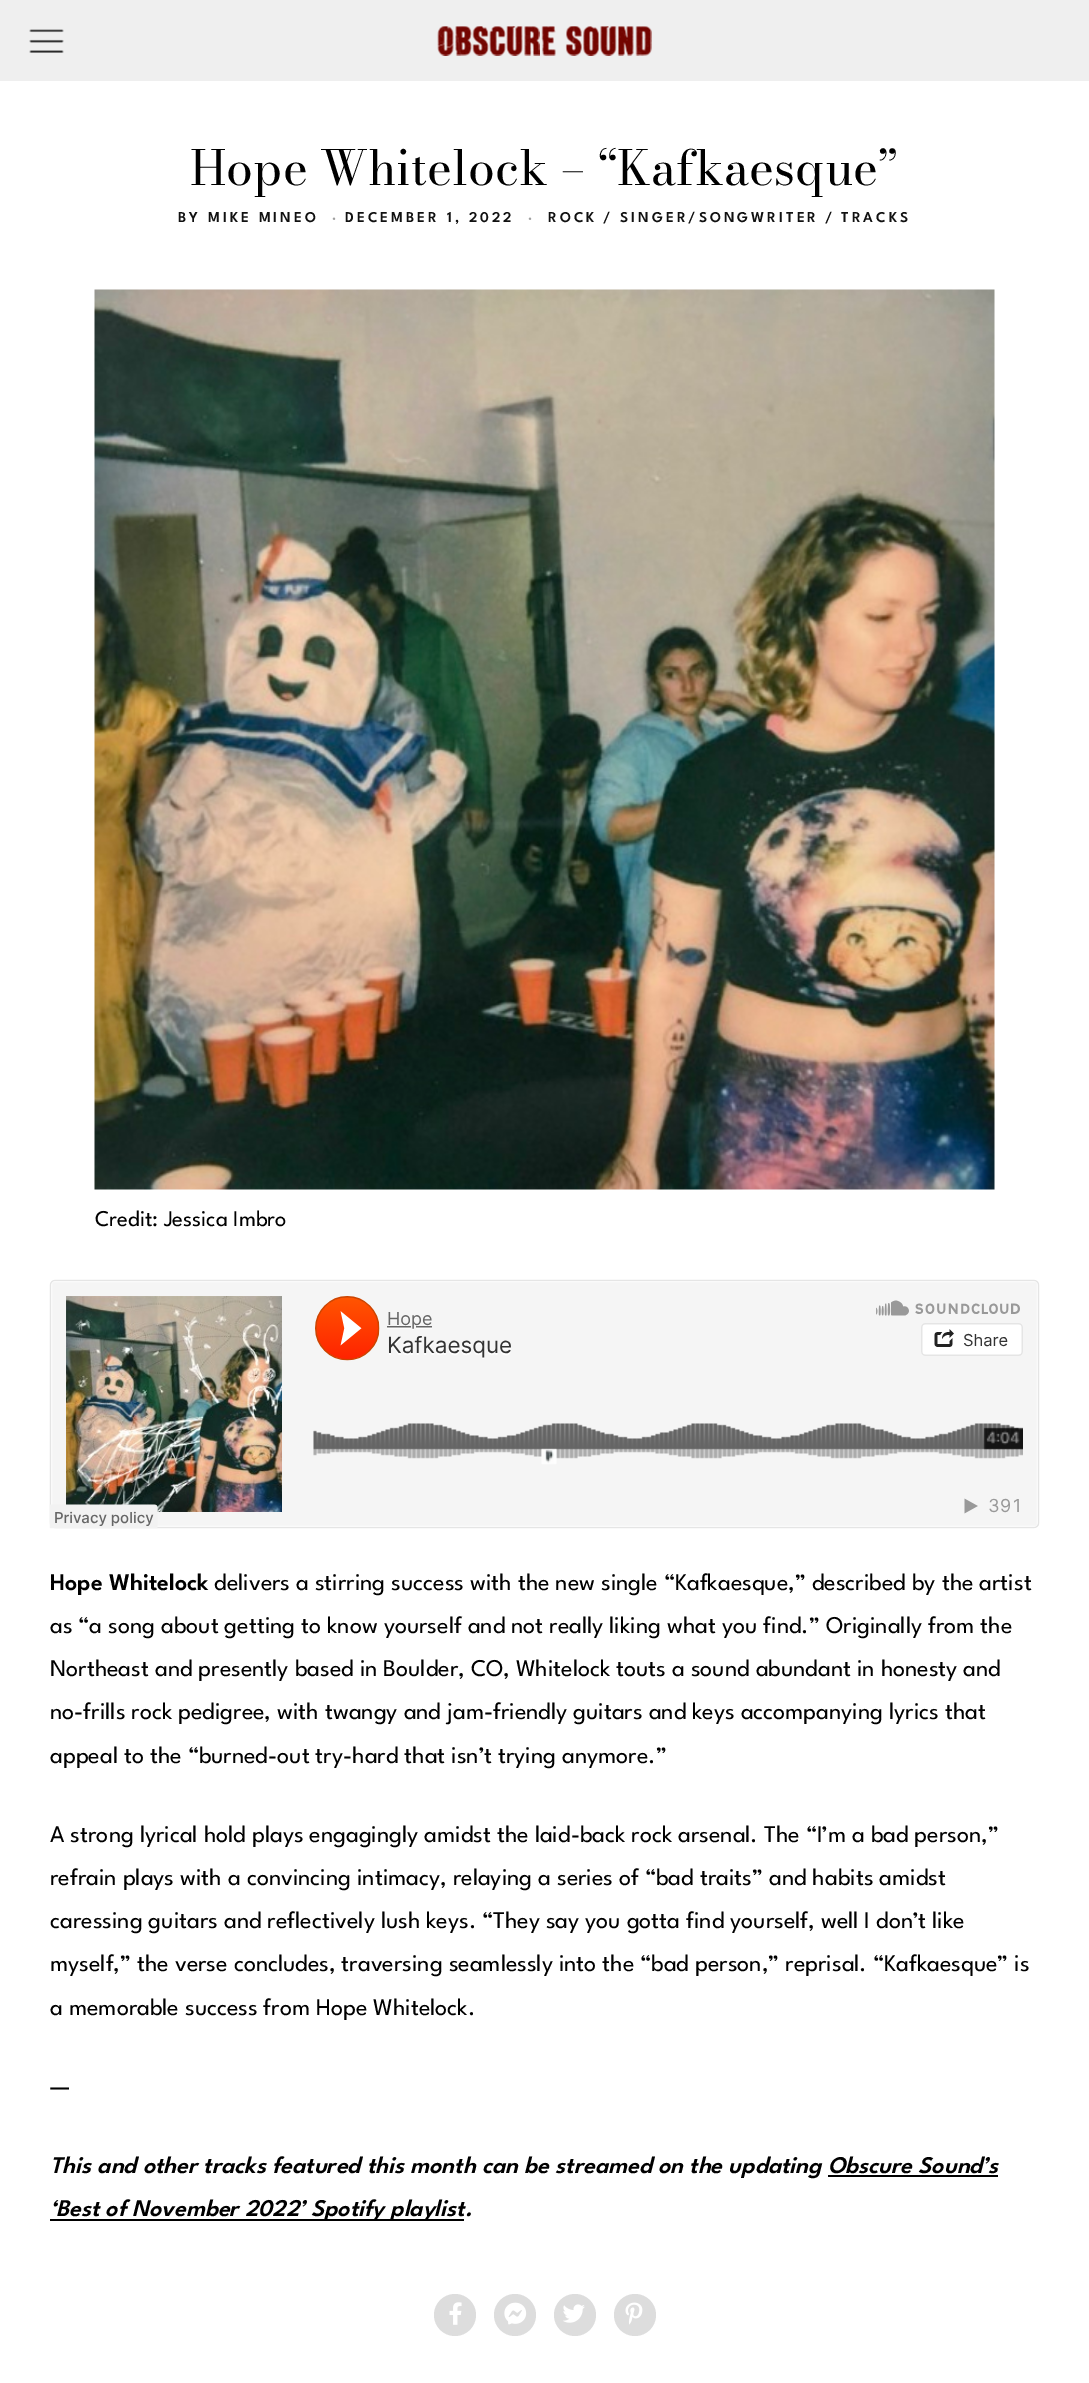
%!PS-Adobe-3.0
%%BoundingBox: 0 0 1089 2383
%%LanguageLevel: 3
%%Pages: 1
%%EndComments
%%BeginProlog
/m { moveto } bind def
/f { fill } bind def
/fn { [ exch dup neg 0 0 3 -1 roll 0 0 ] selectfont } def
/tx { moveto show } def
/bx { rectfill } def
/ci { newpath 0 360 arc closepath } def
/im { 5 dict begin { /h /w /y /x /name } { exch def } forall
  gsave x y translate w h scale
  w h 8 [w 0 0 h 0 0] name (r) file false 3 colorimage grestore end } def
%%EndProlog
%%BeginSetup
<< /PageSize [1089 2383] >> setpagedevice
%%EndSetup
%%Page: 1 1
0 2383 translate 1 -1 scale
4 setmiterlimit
1 setgray
0 0 1089 2383 bx
0.937 setgray
0 0 1089 81 bx
(image0.raw) 29 29 35 24 im
(image1.raw) 437 26 215 30 im
/BodoniModa-Regular 47.9 fn
0 setgray
(Hope Whitelock – “Kafkaesque”) 190 185 tx
/LeagueSpartan-Thin 15 fn
0.067 setgray
178 222 m 3 0 (BY MIKE MINEO) ashow
0.627 setgray
332 222 m 3 0 (·) ashow
0.067 setgray
345 222 m 3 0 (DECEMBER 1, 2022) ashow
0.627 setgray
528 222 m 3 0 (·) ashow
0.067 setgray
548 222 m 3 0 (ROCK) ashow
603 222 m 3 0 (/) ashow
620 222 m 3 0 (SINGER/SONGWRITER) ashow
825 222 m 3 0 (/) ashow
841 222 m 3 0 (TRACKS) ashow
(image2.raw) 94 289 901 901 im
/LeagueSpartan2-Thin 22.5 fn
0 setgray
(Credit: Jessica Imbro) 95 1226 tx
(image3.raw) 49 1279 991 250 im
/LeagueSpartan-Thin 24 fn
(Hope Whitelock) 50 1590 tx
/LeagueSpartan2-Thin 24 fn
(delivers a stirring success with the new single “Kafkaesque,” described by the artist) 214 1590 tx
(as “a song about getting to know yourself and not really liking what you find.” Originally from the) 50 1633 tx
(Northeast and presently based in Boulder, CO, Whitelock touts a sound abundant in honesty and) 50 1676 tx
(no-frills rock pedigree, with twangy and jam-friendly guitars and keys accompanying lyrics that) 50 1719 tx
(appeal to the “burned-out try-hard that isn’t trying anymore.”) 50 1763 tx
(A strong lyrical hold plays engagingly amidst the laid-back rock arsenal. The “I’m a bad person,”) 50 1842 tx
(refrain plays with a convincing intimacy, relaying a series of “bad traits” and habits amidst) 50 1885 tx
(caressing guitars and reflectively lush keys. “They say you gotta find yourself, well I don’t like) 50 1928 tx
(myself,” the verse concludes, traversing seamlessly into the “bad person,” reprisal. “Kafkaesque” is) 50 1971 tx
(a memorable success from Hope Whitelock.) 50 2015 tx
(—) 50 2094 tx
/LeagueSpartan-ThinItalic 24 fn
(This and other tracks featured this month can be streamed on the updating Obscure Sound’s) 50 2173 tx
828 2175 170 2 bx
50 2219 414 2 bx
(‘Best of November 2022’ Spotify playlist.) 50 2216 tx
0.867 setgray
455 2315 21 ci f
(image4.raw) 449 2302 13 23 im
515 2315 21 ci f
(image5.raw) 504 2302 23 23 im
575 2315 21 ci f
(image6.raw) 563 2304 22 19 im
635 2315 21 ci f
(image7.raw) 625 2302 18 23 im
showpage
%%EOF
